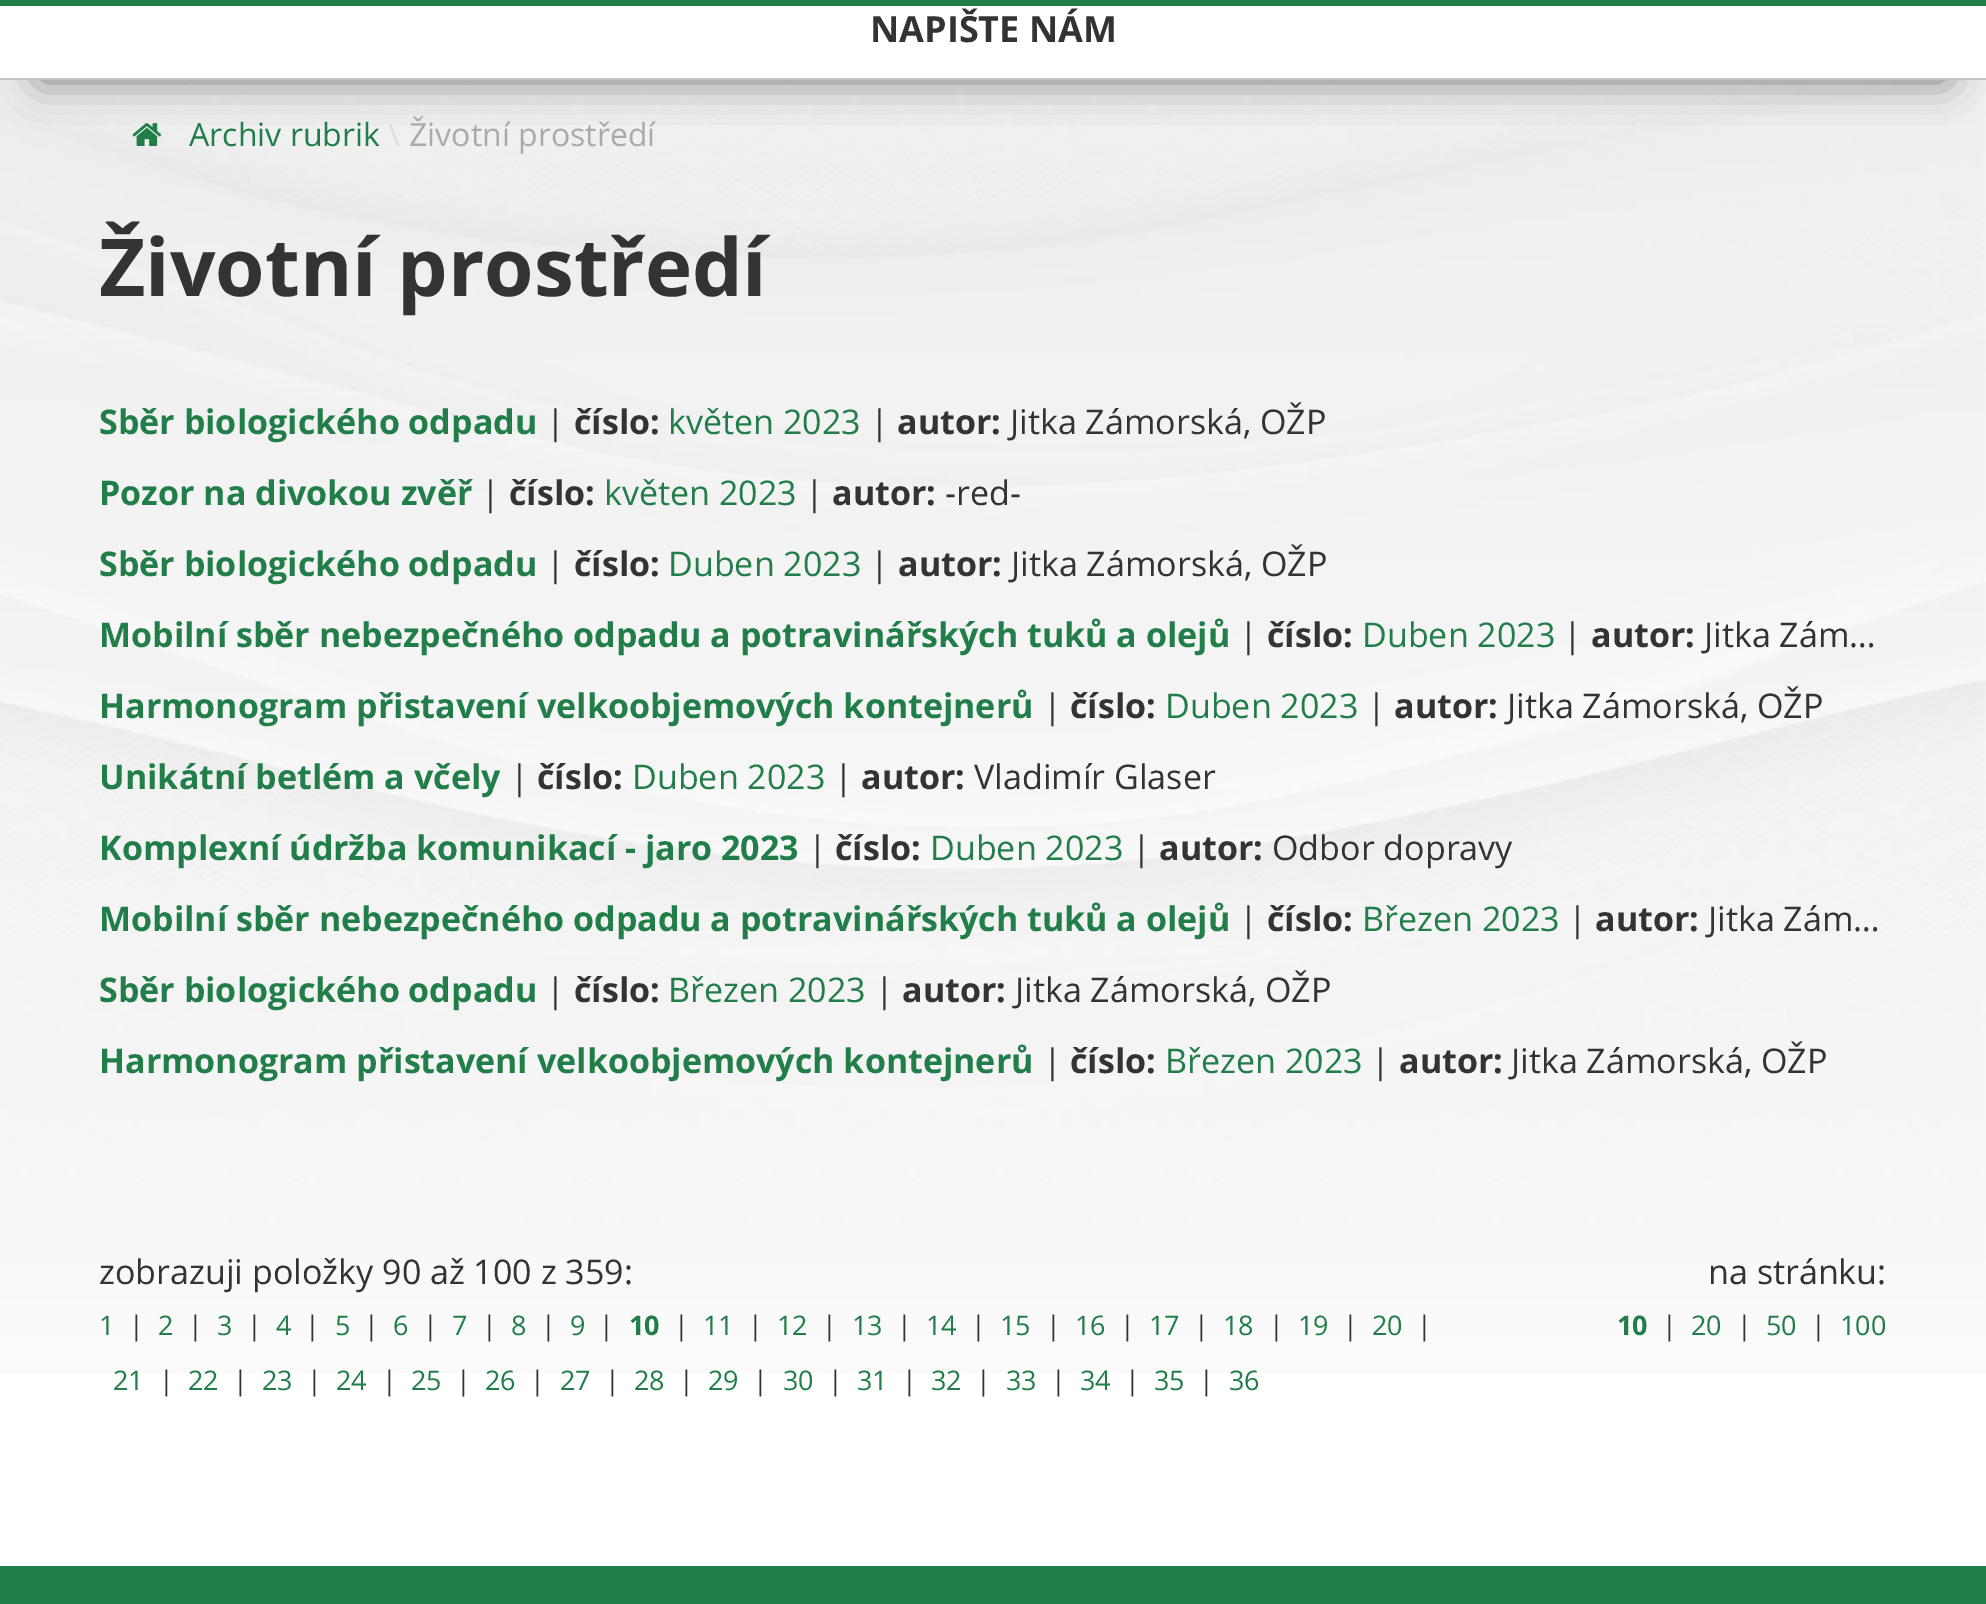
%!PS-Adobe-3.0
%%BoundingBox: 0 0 1986 1604
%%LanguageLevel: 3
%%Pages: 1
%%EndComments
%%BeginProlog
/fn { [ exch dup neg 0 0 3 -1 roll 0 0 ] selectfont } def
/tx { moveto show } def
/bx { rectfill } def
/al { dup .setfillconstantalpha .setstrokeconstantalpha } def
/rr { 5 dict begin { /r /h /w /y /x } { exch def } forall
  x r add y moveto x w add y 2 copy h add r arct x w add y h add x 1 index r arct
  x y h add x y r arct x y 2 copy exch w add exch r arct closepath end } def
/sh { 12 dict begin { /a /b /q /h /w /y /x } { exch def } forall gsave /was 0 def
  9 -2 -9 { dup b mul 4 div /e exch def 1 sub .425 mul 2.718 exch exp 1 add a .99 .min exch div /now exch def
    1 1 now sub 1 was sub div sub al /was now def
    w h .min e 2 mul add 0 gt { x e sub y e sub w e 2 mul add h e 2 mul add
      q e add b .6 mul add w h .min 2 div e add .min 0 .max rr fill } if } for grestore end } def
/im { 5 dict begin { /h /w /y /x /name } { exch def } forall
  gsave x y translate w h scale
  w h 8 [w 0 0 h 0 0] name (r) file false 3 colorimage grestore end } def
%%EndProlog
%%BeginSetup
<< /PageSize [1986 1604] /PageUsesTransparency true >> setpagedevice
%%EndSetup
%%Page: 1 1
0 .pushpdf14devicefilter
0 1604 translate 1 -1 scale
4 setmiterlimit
1 setgray
0 0 1986 1604 bx
(image0.raw) 0 80 1986 1293 im
0 setgray
40 -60 1906 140 0 20 0.5 sh
0.133 0.494 0.282 setrgbcolor
0 0 1986 6 bx
1 setgray
0 6 1986 72 bx
0.769 setgray
0 78 1986 2 bx
/OpenSans-Bold 36 fn
0.2 setgray
(NAPIŠTE NÁM) 870 42 tx
(image1.raw) 132 123 30 23 im
/OpenSans-Regular 32 fn
0.133 0.494 0.282 setrgbcolor
(Archiv rubrik) 189 146 tx
0.867 setgray
(\\) 388 146 tx
0.667 setgray
(Životní prostředí) 409 146 tx
/OpenSans-Bold 80 fn
0.2 setgray
(Životní prostředí) 99 296 tx
/OpenSans-Bold 34 fn
0.133 0.494 0.282 setrgbcolor
(Sběr biologického odpadu) 99 434 tx
/OpenSans-Regular 34 fn
0.2 setgray
(|) 546 434 tx
/OpenSans-Bold 34 fn
(číslo:) 574 434 tx
/OpenSans-Regular 34 fn
0.133 0.494 0.282 setrgbcolor
(květen 2023) 668 434 tx
0.2 setgray
(|) 870 434 tx
/OpenSans-Bold 34 fn
(autor:) 897 434 tx
/OpenSans-Regular 34 fn
(Jitka Zámorská, OŽP) 1010 434 tx
/OpenSans-Bold 34 fn
0.133 0.494 0.282 setrgbcolor
(Pozor na divokou zvěř) 99 505 tx
/OpenSans-Regular 34 fn
0.2 setgray
(|) 481 505 tx
/OpenSans-Bold 34 fn
(číslo:) 509 505 tx
/OpenSans-Regular 34 fn
0.133 0.494 0.282 setrgbcolor
(květen 2023) 604 505 tx
0.2 setgray
(|) 805 505 tx
/OpenSans-Bold 34 fn
(autor:) 832 505 tx
/OpenSans-Regular 34 fn
(-red-) 945 505 tx
/OpenSans-Bold 34 fn
0.133 0.494 0.282 setrgbcolor
(Sběr biologického odpadu) 99 576 tx
/OpenSans-Regular 34 fn
0.2 setgray
(|) 546 576 tx
/OpenSans-Bold 34 fn
(číslo:) 574 576 tx
/OpenSans-Regular 34 fn
0.133 0.494 0.282 setrgbcolor
(Duben 2023) 668 576 tx
0.2 setgray
(|) 870 576 tx
/OpenSans-Bold 34 fn
(autor:) 898 576 tx
/OpenSans-Regular 34 fn
(Jitka Zámorská, OŽP) 1011 576 tx
/OpenSans-Bold 34 fn
0.133 0.494 0.282 setrgbcolor
(Mobilní sběr nebezpečného odpadu a potravinářských tuků a olejů) 99 647 tx
/OpenSans-Regular 34 fn
0.2 setgray
(|) 1239 647 tx
/OpenSans-Bold 34 fn
(číslo:) 1267 647 tx
/OpenSans-Regular 34 fn
0.133 0.494 0.282 setrgbcolor
(Duben 2023) 1362 647 tx
0.2 setgray
(|) 1563 647 tx
/OpenSans-Bold 34 fn
(autor:) 1591 647 tx
/OpenSans-Regular 34 fn
(Jitka Zám…) 1704 647 tx
/OpenSans-Bold 34 fn
0.133 0.494 0.282 setrgbcolor
(Harmonogram přistavení velkoobjemových kontejnerů) 99 718 tx
/OpenSans-Regular 34 fn
0.2 setgray
(|) 1043 718 tx
/OpenSans-Bold 34 fn
(číslo:) 1070 718 tx
/OpenSans-Regular 34 fn
0.133 0.494 0.282 setrgbcolor
(Duben 2023) 1165 718 tx
0.2 setgray
(|) 1367 718 tx
/OpenSans-Bold 34 fn
(autor:) 1394 718 tx
/OpenSans-Regular 34 fn
(Jitka Zámorská, OŽP) 1507 718 tx
/OpenSans-Bold 34 fn
0.133 0.494 0.282 setrgbcolor
(Unikátní betlém a včely) 99 789 tx
/OpenSans-Regular 34 fn
0.2 setgray
(|) 510 789 tx
/OpenSans-Bold 34 fn
(číslo:) 537 789 tx
/OpenSans-Regular 34 fn
0.133 0.494 0.282 setrgbcolor
(Duben 2023) 632 789 tx
0.2 setgray
(|) 834 789 tx
/OpenSans-Bold 34 fn
(autor:) 861 789 tx
/OpenSans-Regular 34 fn
(Vladimír Glaser) 974 789 tx
/OpenSans-Bold 34 fn
0.133 0.494 0.282 setrgbcolor
(Komplexní údržba komunikací - jaro 2023) 99 860 tx
/OpenSans-Regular 34 fn
0.2 setgray
(|) 808 860 tx
/OpenSans-Bold 34 fn
(číslo:) 835 860 tx
/OpenSans-Regular 34 fn
0.133 0.494 0.282 setrgbcolor
(Duben 2023) 930 860 tx
0.2 setgray
(|) 1132 860 tx
/OpenSans-Bold 34 fn
(autor:) 1159 860 tx
/OpenSans-Regular 34 fn
(Odbor dopravy) 1272 860 tx
/OpenSans-Bold 34 fn
0.133 0.494 0.282 setrgbcolor
(Mobilní sběr nebezpečného odpadu a potravinářských tuků a olejů) 99 931 tx
/OpenSans-Regular 34 fn
0.2 setgray
(|) 1239 931 tx
/OpenSans-Bold 34 fn
(číslo:) 1267 931 tx
/OpenSans-Regular 34 fn
0.133 0.494 0.282 setrgbcolor
(Březen 2023) 1362 931 tx
0.2 setgray
(|) 1568 931 tx
/OpenSans-Bold 34 fn
(autor:) 1595 931 tx
/OpenSans-Regular 34 fn
(Jitka Zám…) 1708 931 tx
/OpenSans-Bold 34 fn
0.133 0.494 0.282 setrgbcolor
(Sběr biologického odpadu) 99 1002 tx
/OpenSans-Regular 34 fn
0.2 setgray
(|) 546 1002 tx
/OpenSans-Bold 34 fn
(číslo:) 574 1002 tx
/OpenSans-Regular 34 fn
0.133 0.494 0.282 setrgbcolor
(Březen 2023) 668 1002 tx
0.2 setgray
(|) 875 1002 tx
/OpenSans-Bold 34 fn
(autor:) 902 1002 tx
/OpenSans-Regular 34 fn
(Jitka Zámorská, OŽP) 1015 1002 tx
/OpenSans-Bold 34 fn
0.133 0.494 0.282 setrgbcolor
(Harmonogram přistavení velkoobjemových kontejnerů) 99 1073 tx
/OpenSans-Regular 34 fn
0.2 setgray
(|) 1043 1073 tx
/OpenSans-Bold 34 fn
(číslo:) 1070 1073 tx
/OpenSans-Regular 34 fn
0.133 0.494 0.282 setrgbcolor
(Březen 2023) 1165 1073 tx
0.2 setgray
(|) 1371 1073 tx
/OpenSans-Bold 34 fn
(autor:) 1399 1073 tx
/OpenSans-Regular 34 fn
(Jitka Zámorská, OŽP) 1511 1073 tx
(zobrazuji položky 90 až 100 z 359:) 99 1284 tx
/OpenSans-Regular 27 fn
0.133 0.494 0.282 setrgbcolor
(1) 99 1335 tx
0.2 setgray
(|) 129 1335 tx
0.133 0.494 0.282 setrgbcolor
(2) 158 1335 tx
0.2 setgray
(|) 188 1335 tx
0.133 0.494 0.282 setrgbcolor
(3) 217 1335 tx
0.2 setgray
(|) 247 1335 tx
0.133 0.494 0.282 setrgbcolor
(4) 276 1335 tx
0.2 setgray
(|) 305 1335 tx
0.133 0.494 0.282 setrgbcolor
(5) 335 1335 tx
0.2 setgray
(|) 364 1335 tx
0.133 0.494 0.282 setrgbcolor
(6) 393 1335 tx
0.2 setgray
(|) 423 1335 tx
0.133 0.494 0.282 setrgbcolor
(7) 452 1335 tx
0.2 setgray
(|) 482 1335 tx
0.133 0.494 0.282 setrgbcolor
(8) 511 1335 tx
0.2 setgray
(|) 541 1335 tx
0.133 0.494 0.282 setrgbcolor
(9) 570 1335 tx
0.2 setgray
(|) 599 1335 tx
/OpenSans-Bold 27 fn
0.133 0.494 0.282 setrgbcolor
(10) 629 1335 tx
/OpenSans-Regular 27 fn
0.2 setgray
(|) 674 1335 tx
0.133 0.494 0.282 setrgbcolor
(11) 703 1335 tx
0.2 setgray
(|) 748 1335 tx
0.133 0.494 0.282 setrgbcolor
(12) 777 1335 tx
0.2 setgray
(|) 822 1335 tx
0.133 0.494 0.282 setrgbcolor
(13) 852 1335 tx
0.2 setgray
(|) 897 1335 tx
0.133 0.494 0.282 setrgbcolor
(14) 926 1335 tx
0.2 setgray
(|) 971 1335 tx
0.133 0.494 0.282 setrgbcolor
(15) 1000 1335 tx
0.2 setgray
(|) 1046 1335 tx
0.133 0.494 0.282 setrgbcolor
(16) 1075 1335 tx
0.2 setgray
(|) 1120 1335 tx
0.133 0.494 0.282 setrgbcolor
(17) 1149 1335 tx
0.2 setgray
(|) 1194 1335 tx
0.133 0.494 0.282 setrgbcolor
(18) 1223 1335 tx
0.2 setgray
(|) 1269 1335 tx
0.133 0.494 0.282 setrgbcolor
(19) 1298 1335 tx
0.2 setgray
(|) 1343 1335 tx
0.133 0.494 0.282 setrgbcolor
(20) 1372 1335 tx
0.2 setgray
(|) 1417 1335 tx
0.133 0.494 0.282 setrgbcolor
(21) 113 1390 tx
0.2 setgray
(|) 159 1390 tx
0.133 0.494 0.282 setrgbcolor
(22) 188 1390 tx
0.2 setgray
(|) 233 1390 tx
0.133 0.494 0.282 setrgbcolor
(23) 262 1390 tx
0.2 setgray
(|) 307 1390 tx
0.133 0.494 0.282 setrgbcolor
(24) 336 1390 tx
0.2 setgray
(|) 382 1390 tx
0.133 0.494 0.282 setrgbcolor
(25) 411 1390 tx
0.2 setgray
(|) 456 1390 tx
0.133 0.494 0.282 setrgbcolor
(26) 485 1390 tx
0.2 setgray
(|) 530 1390 tx
0.133 0.494 0.282 setrgbcolor
(27) 560 1390 tx
0.2 setgray
(|) 605 1390 tx
0.133 0.494 0.282 setrgbcolor
(28) 634 1390 tx
0.2 setgray
(|) 679 1390 tx
0.133 0.494 0.282 setrgbcolor
(29) 708 1390 tx
0.2 setgray
(|) 753 1390 tx
0.133 0.494 0.282 setrgbcolor
(30) 783 1390 tx
0.2 setgray
(|) 828 1390 tx
0.133 0.494 0.282 setrgbcolor
(31) 857 1390 tx
0.2 setgray
(|) 902 1390 tx
0.133 0.494 0.282 setrgbcolor
(32) 931 1390 tx
0.2 setgray
(|) 976 1390 tx
0.133 0.494 0.282 setrgbcolor
(33) 1006 1390 tx
0.2 setgray
(|) 1051 1390 tx
0.133 0.494 0.282 setrgbcolor
(34) 1080 1390 tx
0.2 setgray
(|) 1125 1390 tx
0.133 0.494 0.282 setrgbcolor
(35) 1154 1390 tx
0.2 setgray
(|) 1199 1390 tx
0.133 0.494 0.282 setrgbcolor
(36) 1229 1390 tx
/OpenSans-Regular 34 fn
0.2 setgray
(na stránku:) 1708 1284 tx
/OpenSans-Bold 27 fn
0.133 0.494 0.282 setrgbcolor
(10) 1617 1335 tx
/OpenSans-Regular 27 fn
0.2 setgray
(|) 1662 1335 tx
0.133 0.494 0.282 setrgbcolor
(20) 1691 1335 tx
0.2 setgray
(|) 1737 1335 tx
0.133 0.494 0.282 setrgbcolor
(50) 1766 1335 tx
0.2 setgray
(|) 1811 1335 tx
0.133 0.494 0.282 setrgbcolor
(100) 1840 1335 tx
0 1566 1986 38 bx
.poppdf14devicefilter showpage
%%EOF
